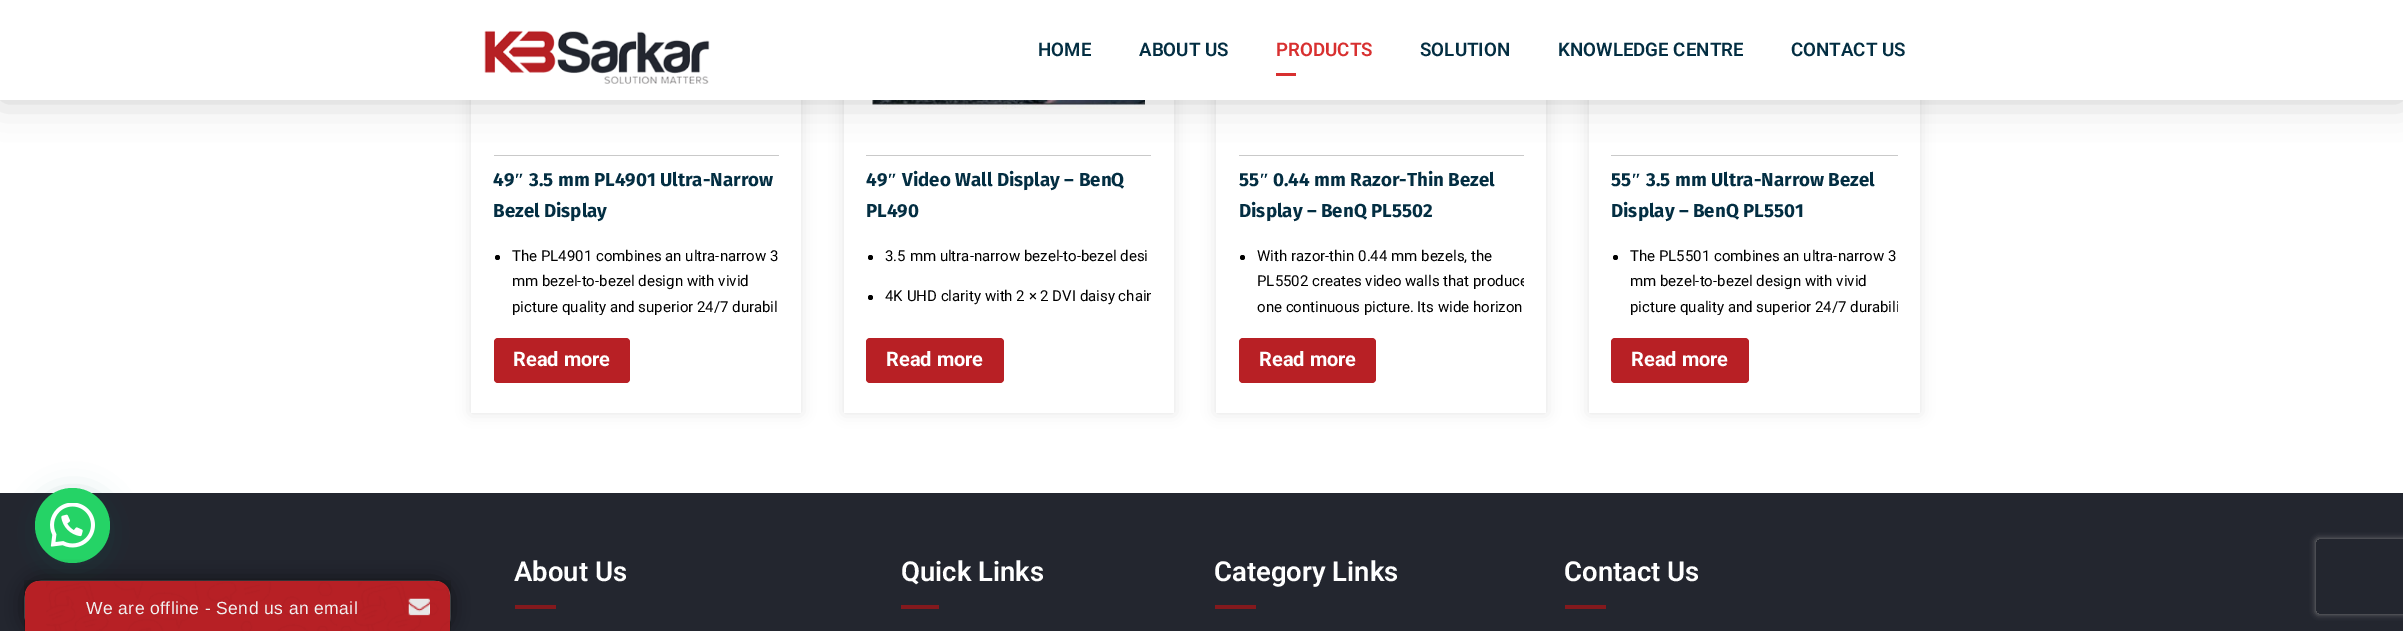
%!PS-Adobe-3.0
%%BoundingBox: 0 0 2403 631
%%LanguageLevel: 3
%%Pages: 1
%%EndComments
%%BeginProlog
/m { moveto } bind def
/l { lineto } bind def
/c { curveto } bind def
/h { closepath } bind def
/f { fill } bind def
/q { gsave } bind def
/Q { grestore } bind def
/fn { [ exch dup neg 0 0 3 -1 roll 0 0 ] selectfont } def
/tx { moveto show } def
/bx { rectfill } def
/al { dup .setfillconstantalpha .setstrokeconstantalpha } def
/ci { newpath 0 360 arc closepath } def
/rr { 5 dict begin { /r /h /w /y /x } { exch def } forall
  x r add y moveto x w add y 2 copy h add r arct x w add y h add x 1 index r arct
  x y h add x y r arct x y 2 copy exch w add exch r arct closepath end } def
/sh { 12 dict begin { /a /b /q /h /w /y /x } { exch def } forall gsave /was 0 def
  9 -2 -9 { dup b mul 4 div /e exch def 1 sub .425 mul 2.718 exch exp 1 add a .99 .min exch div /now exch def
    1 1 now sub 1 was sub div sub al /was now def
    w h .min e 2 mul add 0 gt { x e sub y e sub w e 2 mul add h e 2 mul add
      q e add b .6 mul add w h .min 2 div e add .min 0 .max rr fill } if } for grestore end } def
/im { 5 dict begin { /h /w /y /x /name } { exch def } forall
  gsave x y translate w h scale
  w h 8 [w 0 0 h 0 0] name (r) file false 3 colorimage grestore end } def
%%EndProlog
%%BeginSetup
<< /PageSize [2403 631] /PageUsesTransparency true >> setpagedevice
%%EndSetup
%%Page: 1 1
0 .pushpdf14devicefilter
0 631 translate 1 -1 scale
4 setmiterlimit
1 setgray
0 0 2403 631 bx
0.137 0.149 0.184 setrgbcolor
0 493 2403 138 bx
0.027 0.369 0.329 setrgbcolor
36 495 75 75 37.5 15 0.24 sh
0.145 0.827 0.4 setrgbcolor
72.5 525.5 37.5 ci f
0.067 setgray
25 581 425 50 16 9.5 1 sh
(image0.raw) 24 580 427 51 im
0.718 0.125 0.145 setrgbcolor
39 581 m 436 581 l 443.5 581 450 587.5 450 595 c 450 631 l 25 631 l 25 595 l 25 587.5 31.5 581 39 581 c h f
(image1.raw) 46 582 404 49 im
/LiberationSans-Regular 17.5 fn
0.945 setgray
86 614 m 0.4 0 (We are offline - Send us an email) ashow
(image2.raw) 408 598 22 18 im
0.796 setgray
471 -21 330 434 0 7 0.56 sh
1 setgray
471 100 330 313 bx
0.788 setgray
494 155 285 1 bx
0.796 setgray
844 -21 330 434 0 7 0.56 sh
1 setgray
844 100 330 313 bx
0.788 setgray
866 155 285 1 bx
(image5.raw) 872 100 273 9 im
0.796 setgray
1216 -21 330 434 0 7 0.56 sh
1 setgray
1216 100 330 313 bx
0.788 setgray
1239 155 285 1 bx
0.796 setgray
1589 -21 331 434 0 7 0.56 sh
1 setgray
1589 100 331 313 bx
0.788 setgray
1611 155 287 1 bx
0 setgray
0 0 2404 100 0 19 0.2 sh
1 setgray
0 0 2403 100 bx
(image3.raw) 484 30 226 54 im
/Roboto-SemiBold 18.75 fn
0.012 0.18 0.259 setrgbcolor
(HOME) 1038 56 tx
(ABOUT US) 1139 56 tx
0.847 0.188 0.188 setrgbcolor
(PRODUCTS) 1276 56 tx
1276 73 20 3 bx
0.012 0.18 0.259 setrgbcolor
(SOLUTION) 1420 56 tx
(KNOWLEDGE CENTRE) 1558 56 tx
(CONTACT US) 1791 56 tx
(image4.raw) 50 503 45 45 im
/FiraSans-Bold 18.75 fn
(49) 493 186 tx
/LiberationSerif-Bold 18.75 fn
(″) 514 186 tx
/FiraSans-Bold 18.75 fn
(3.5 mm PL4901 Ultra-Narrow) 529 186 tx
(Bezel Display) 493 217 tx
0 setgray
497.5 257.5 2.5 ci f
/Roboto-Regular 15 fn
(The PL4901 combines an ultra-narrow 3) 512 261 tx
(mm bezel-to-bezel design with vivid) 512 286 tx
q
494 240 285 75 rectclip
(picture quality and superior 24/7 durabil) 512 312 tx
Q
0.722 0.125 0.145 setrgbcolor
494 338 136 45 4 rr f
/Roboto-Bold 20 fn
1 setgray
(Read more) 513 366 tx
/FiraSans-Bold 18.75 fn
0.012 0.18 0.259 setrgbcolor
(49) 866 186 tx
/LiberationSerif-Bold 18.75 fn
(″) 887 186 tx
/FiraSans-Bold 18.75 fn
(Video Wall Display – BenQ) 902 186 tx
(PL490) 866 217 tx
0 setgray
870.5 257.5 2.5 ci f
/Roboto-Regular 15 fn
(3.5 mm ultra-narrow bezel-to-bezel desi) 885 261 tx
870.5 297.5 2.5 ci f
q
866 240 285 75 rectclip
(4K UHD clarity with 2 × 2 DVI daisy chain) 885 301 tx
Q
0.722 0.125 0.145 setrgbcolor
866 338 138 45 4 rr f
/Roboto-Bold 20 fn
1 setgray
(Read more) 886 366 tx
/FiraSans-Bold 18.75 fn
0.012 0.18 0.259 setrgbcolor
(55) 1239 186 tx
/LiberationSerif-Bold 18.75 fn
(″) 1259 186 tx
/FiraSans-Bold 18.75 fn
(0.44 mm Razor-Thin Bezel) 1273 186 tx
(Display – BenQ PL5502) 1239 217 tx
0 setgray
1242.5 257.5 2.5 ci f
/Roboto-Regular 15 fn
(With razor-thin 0.44 mm bezels, the) 1257 261 tx
q
1239 240 285 75 rectclip
(PL5502 creates video walls that produce) 1257 286 tx
Q
(one continuous picture. Its wide horizon) 1257 312 tx
0.722 0.125 0.145 setrgbcolor
1239 338 137 45 4 rr f
/Roboto-Bold 20 fn
1 setgray
(Read more) 1259 366 tx
/FiraSans-Bold 18.75 fn
0.012 0.18 0.259 setrgbcolor
(55) 1611 186 tx
/LiberationSerif-Bold 18.75 fn
(″) 1631 186 tx
/FiraSans-Bold 18.75 fn
(3.5 mm Ultra-Narrow Bezel) 1646 186 tx
(Display – BenQ PL5501) 1611 217 tx
0 setgray
1615.5 257.5 2.5 ci f
/Roboto-Regular 15 fn
(The PL5501 combines an ultra-narrow 3) 1630 261 tx
(mm bezel-to-bezel design with vivid) 1630 286 tx
q
1611 240 287 75 rectclip
(picture quality and superior 24/7 durabili) 1630 312 tx
Q
0.722 0.125 0.145 setrgbcolor
1611 338 138 45 4 rr f
/Roboto-Bold 20 fn
1 setgray
(Read more) 1631 366 tx
/Roboto-SemiBold 27.5 fn
(About Us) 514 581 tx
0.514 0.098 0.114 setrgbcolor
515 605 41 4 bx
1 setgray
(Quick Links) 901 581 tx
0.514 0.098 0.114 setrgbcolor
901 605 38 4 bx
1 setgray
(Category Links) 1214 581 tx
0.514 0.098 0.114 setrgbcolor
1215 605 41 4 bx
1 setgray
(Contact Us) 1564 581 tx
0.514 0.098 0.114 setrgbcolor
1565 605 41 4 bx
q
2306 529 m 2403 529 l 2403 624 l 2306 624 l h 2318.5 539 m 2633.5 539 l 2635 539 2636 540 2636 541.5 c 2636 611.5 l 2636 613 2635 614 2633.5 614 c 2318.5 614 l 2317 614 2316 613 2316 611.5 c 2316 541.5 l 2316 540 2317 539 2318.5 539 c h eoclip newpath
0.502 setgray
2316 539 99 75 2.5 3 1 sh
Q
.poppdf14devicefilter showpage
%%EOF
